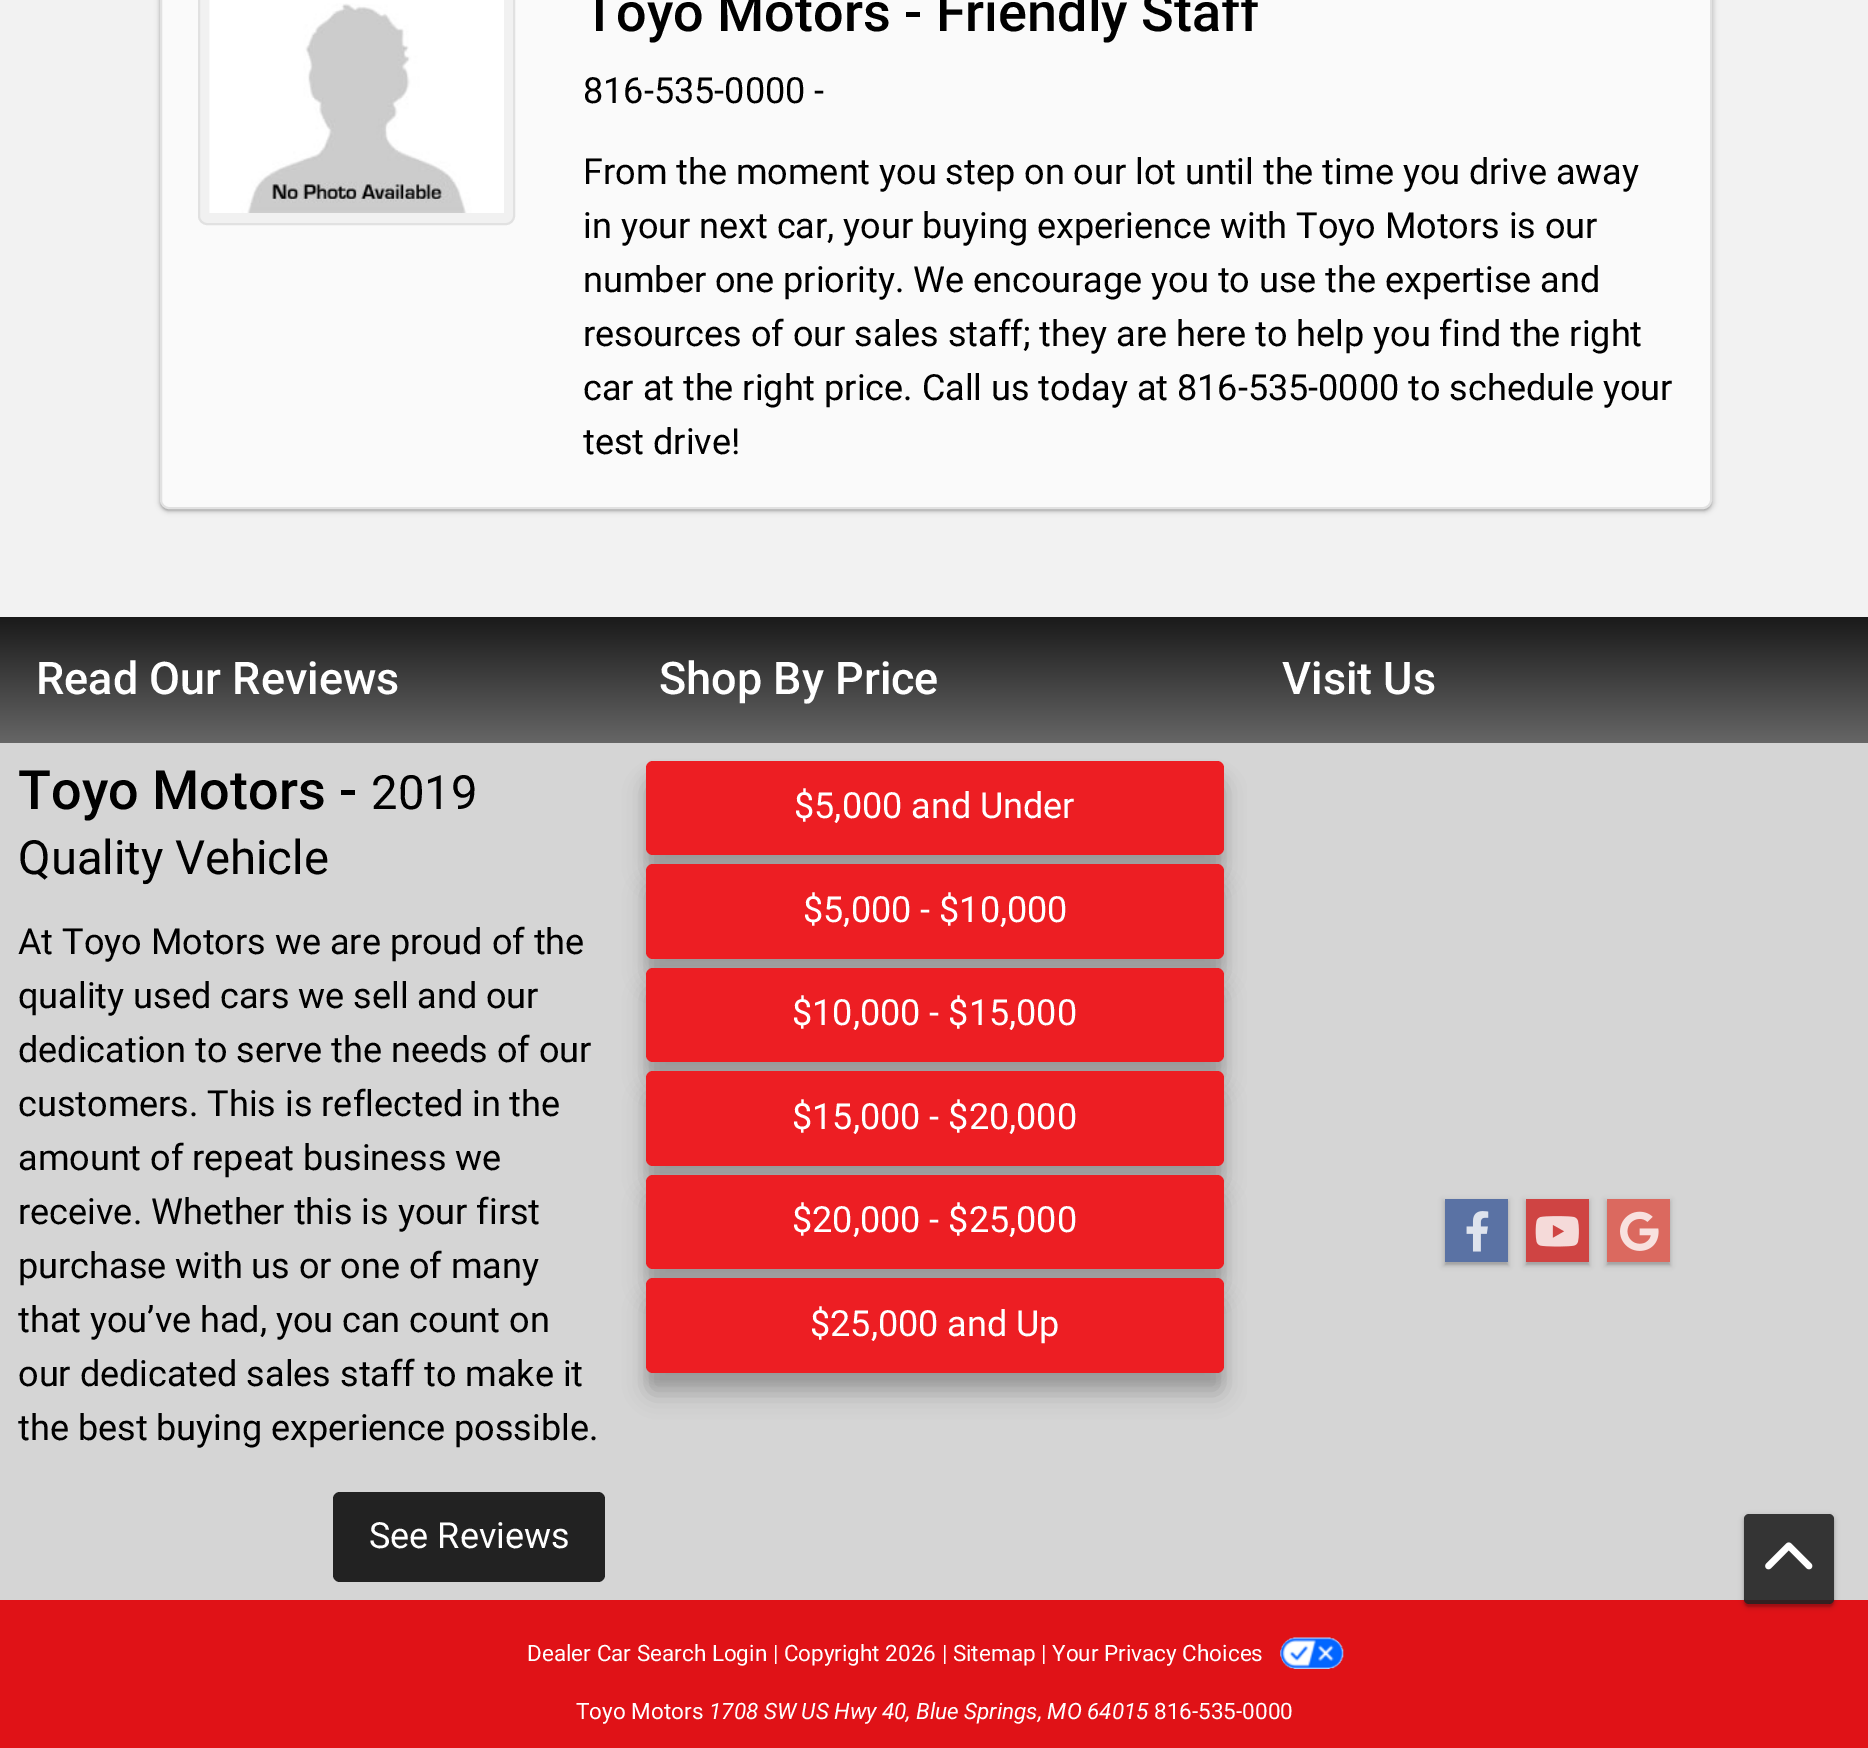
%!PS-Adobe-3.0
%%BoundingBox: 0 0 1868 1748
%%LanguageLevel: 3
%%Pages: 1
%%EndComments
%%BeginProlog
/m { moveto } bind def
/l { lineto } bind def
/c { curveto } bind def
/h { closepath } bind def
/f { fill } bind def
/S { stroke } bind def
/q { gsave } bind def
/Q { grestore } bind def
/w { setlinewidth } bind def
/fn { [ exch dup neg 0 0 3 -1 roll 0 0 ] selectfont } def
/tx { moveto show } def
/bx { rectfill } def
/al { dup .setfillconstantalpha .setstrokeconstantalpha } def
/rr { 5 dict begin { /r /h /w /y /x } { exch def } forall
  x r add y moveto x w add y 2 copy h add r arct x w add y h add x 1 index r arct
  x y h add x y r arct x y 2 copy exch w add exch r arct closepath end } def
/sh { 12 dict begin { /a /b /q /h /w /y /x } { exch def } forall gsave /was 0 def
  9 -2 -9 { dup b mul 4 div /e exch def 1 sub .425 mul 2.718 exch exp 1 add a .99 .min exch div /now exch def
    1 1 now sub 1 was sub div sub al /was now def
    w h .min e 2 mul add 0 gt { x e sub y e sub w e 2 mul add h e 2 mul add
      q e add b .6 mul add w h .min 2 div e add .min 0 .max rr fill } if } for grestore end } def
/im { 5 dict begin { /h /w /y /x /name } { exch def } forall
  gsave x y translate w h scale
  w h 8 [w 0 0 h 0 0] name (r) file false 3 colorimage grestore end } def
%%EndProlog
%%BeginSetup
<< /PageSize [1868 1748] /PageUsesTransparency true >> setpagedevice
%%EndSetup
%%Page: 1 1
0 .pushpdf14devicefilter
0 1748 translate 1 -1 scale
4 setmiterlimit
0.949 setgray
0 0 1868 1748 bx
q
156 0 m 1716 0 l 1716 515 l 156 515 l h 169 -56 m 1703 -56 l 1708 -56 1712 -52 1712 -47 c 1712 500 l 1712 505 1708 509 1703 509 c 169 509 l 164 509 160 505 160 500 c 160 -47 l 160 -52 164 -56 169 -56 c h eoclip newpath
0 setgray
160 -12 1552 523 9 1 0.2 sh
Q
q
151 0 m 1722 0 l 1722 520 l 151 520 l h 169 -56 m 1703 -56 l 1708 -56 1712 -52 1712 -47 c 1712 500 l 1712 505 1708 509 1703 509 c 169 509 l 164 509 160 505 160 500 c 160 -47 l 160 -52 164 -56 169 -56 c h eoclip newpath
0 setgray
158 -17 1557 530 11 2 0.1 sh
Q
0.6 al
1 setgray
161 -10 1550 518 8 rr f
1 al
0.882 setgray
2 w
161 -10 1550 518 8 rr S
0.945 setgray
199 -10 315 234 8 rr q f Q
0.882 setgray
S
(image0.raw) 209 0 295 213 im
/Roboto-Medium 54 fn
0 setgray
(Toyo Motors - Friendly Staff) 583 31 tx
/Roboto-Regular 36 fn
(816-535-0000 -) 583 103 tx
(From the moment you step on our lot until the time you drive away) 583 184 tx
(in your next car, your buying experience with Toyo Motors is our) 583 238 tx
(number one priority. We encourage you to use the expertise and) 583 292 tx
(resources of our sales staff; they are here to help you find the right) 583 346 tx
(car at the right price. Call us today at 816-535-0000 to schedule your) 583 400 tx
(test drive!) 583 454 tx
0.835 setgray
0 743 1247 857 bx
q 0 617 m 623 617 l 623 743 l 0 743 l h clip newpath
<< /ShadingType 2 /ColorSpace /DeviceRGB /Coords [312 617 312 743] /Extend [true true] /Function << /FunctionType 2 /Domain [0 1] /C0 [0.102 0.102 0.102] /C1 [0.4 0.4 0.4] /N 1 >> >> shfill Q
/Roboto-Medium 45 fn
1 setgray
(Read Our Reviews) 36 694 tx
/Roboto-Medium 54 fn
0 setgray
(Toyo Motors -) 18 809 tx
/Roboto-Regular 47.25 fn
(2019) 371 809 tx
(Quality Vehicle) 18 874 tx
/Roboto-Regular 36 fn
(At Toyo Motors we are proud of the) 18 954 tx
(quality used cars we sell and our) 18 1008 tx
(dedication to serve the needs of our) 18 1062 tx
(customers. This is reflected in the) 18 1116 tx
(amount of repeat business we) 18 1170 tx
(receive. Whether this is your first) 18 1224 tx
(purchase with us or one of many) 18 1278 tx
(that you’ve had, you can count on) 18 1332 tx
(our dedicated sales staff to make it) 18 1386 tx
(the best buying experience possible.) 18 1440 tx
0.133 setgray
333 1492 272 90 7 rr f
1 setgray
(See Reviews) 369 1548 tx
q 623 617 m 1247 617 l 1247 743 l 623 743 l h clip newpath
<< /ShadingType 2 /ColorSpace /DeviceRGB /Coords [935 617 935 743] /Extend [true true] /Function << /FunctionType 2 /Domain [0 1] /C0 [0.102 0.102 0.102] /C1 [0.4 0.4 0.4] /N 1 >> >> shfill Q
/Roboto-Medium 45 fn
(Shop By Price) 659 694 tx
0 setgray
646 772 578 94 7 5.5 0.1 sh
646 783 578 95 7 11 0.2 sh
0.929 0.118 0.137 setrgbcolor
646 761 578 94 7 rr f
/Roboto-Regular 36 fn
1 setgray
($5,000 and Under) 794 818 tx
0 setgray
646 875 578 95 7 5.5 0.1 sh
646 887 578 94 7 11 0.2 sh
0.929 0.118 0.137 setrgbcolor
646 864 578 95 7 rr f
1 setgray
($5,000 - $10,000) 803 922 tx
0 setgray
646 979 578 94 7 5.5 0.1 sh
646 990 578 95 7 11 0.2 sh
0.929 0.118 0.137 setrgbcolor
646 968 578 94 7 rr f
1 setgray
($10,000 - $15,000) 792 1025 tx
0 setgray
646 1082 578 95 7 5.5 0.1 sh
646 1094 578 94 7 11 0.2 sh
0.929 0.118 0.137 setrgbcolor
646 1071 578 95 7 rr f
1 setgray
($15,000 - $20,000) 792 1129 tx
0 setgray
646 1186 578 94 7 5.5 0.1 sh
646 1197 578 95 7 11 0.2 sh
0.929 0.118 0.137 setrgbcolor
646 1175 578 94 7 rr f
1 setgray
($20,000 - $25,000) 792 1232 tx
0 setgray
646 1289 578 95 7 5.5 0.1 sh
646 1301 578 94 7 11 0.2 sh
0.929 0.118 0.137 setrgbcolor
646 1278 578 95 7 rr f
1 setgray
($25,000 and Up) 810 1336 tx
0.835 setgray
1247 743 621 857 bx
q 1247 617 m 1868 617 l 1868 743 l 1247 743 l h clip newpath
<< /ShadingType 2 /ColorSpace /DeviceRGB /Coords [1558 617 1558 743] /Extend [true true] /Function << /FunctionType 2 /Domain [0 1] /C0 [0.102 0.102 0.102] /C1 [0.4 0.4 0.4] /N 1 >> >> shfill Q
/Roboto-Medium 45 fn
1 setgray
(Visit Us) 1282 694 tx
0.169 setgray
1445 1202 63 63 0 1 0.2 sh
1442 1199 68 68 0 2 0.1 sh
0.353 0.447 0.643 setrgbcolor
1445 1199 63 63 bx
(image1.raw) 1466 1211 23 41 im
0.169 setgray
1526 1202 63 63 0 1 0.2 sh
1523 1199 68 68 0 2 0.1 sh
0.812 0.267 0.263 setrgbcolor
1526 1199 63 63 bx
(image2.raw) 1535 1216 44 31 im
0.169 setgray
1607 1202 63 63 0 1 0.2 sh
1604 1199 68 68 0 2 0.1 sh
0.859 0.412 0.373 setrgbcolor
1607 1199 63 63 bx
(image3.raw) 1620 1211 39 40 im
0.878 0.071 0.09 setrgbcolor
0 1600 1868 148 bx
/Roboto-Regular 22.5 fn
1 setgray
(Dealer Car Search Login | Copyright 2026 | Sitemap | Your Privacy Choices) 527 1661 tx
(image4.raw) 1280 1637 64 32 im
(Toyo Motors) 576 1719 tx
/Roboto-Italic 22.5 fn
(1708 SW US Hwy 40, Blue Springs, MO 64015) 709 1719 tx
/Roboto-Regular 22.5 fn
(816-535-0000) 1154 1719 tx
q
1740 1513 m 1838 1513 l 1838 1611 l 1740 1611 l h 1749 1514 m 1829 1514 l 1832 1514 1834 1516 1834 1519 c 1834 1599 l 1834 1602 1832 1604 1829 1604 c 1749 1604 l 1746 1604 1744 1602 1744 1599 c 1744 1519 l 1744 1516 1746 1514 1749 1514 c h eoclip newpath
0 setgray
1744 1517 90 90 5 1 0.2 sh
Q
q
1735 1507 m 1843 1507 l 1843 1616 l 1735 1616 l h 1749 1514 m 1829 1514 l 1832 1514 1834 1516 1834 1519 c 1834 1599 l 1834 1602 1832 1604 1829 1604 c 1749 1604 l 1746 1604 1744 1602 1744 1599 c 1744 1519 l 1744 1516 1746 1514 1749 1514 c h eoclip newpath
0 setgray
1742 1514 94 95 7 2 0.1 sh
Q
0.9 al
0.133 setgray
1744 1514 90 90 5 rr f
1 al
(image5.raw) 1765 1542 48 28 im
.poppdf14devicefilter showpage
%%EOF
